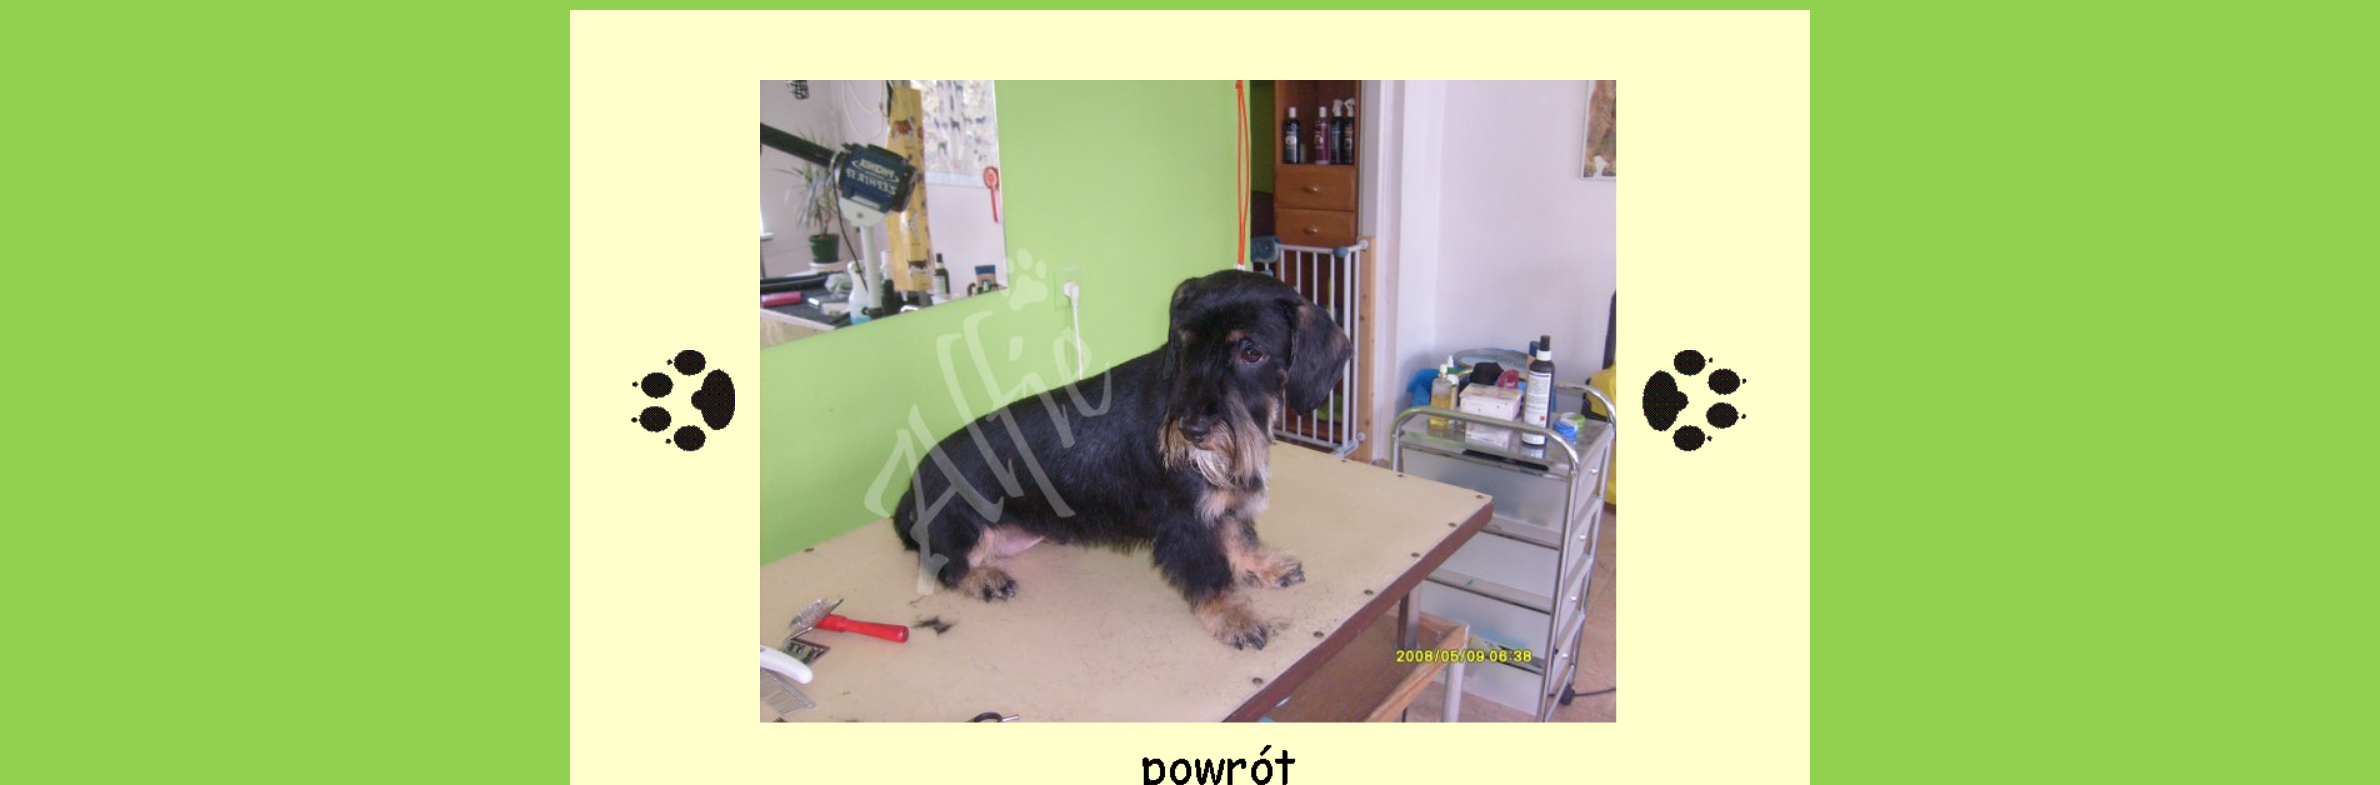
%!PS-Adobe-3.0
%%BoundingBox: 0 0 2380 785
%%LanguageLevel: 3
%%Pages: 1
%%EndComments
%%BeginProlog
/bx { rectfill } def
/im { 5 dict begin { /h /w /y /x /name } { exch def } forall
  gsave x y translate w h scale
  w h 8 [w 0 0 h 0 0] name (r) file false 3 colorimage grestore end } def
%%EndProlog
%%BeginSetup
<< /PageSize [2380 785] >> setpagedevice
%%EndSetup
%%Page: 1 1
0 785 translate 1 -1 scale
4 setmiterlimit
0.573 0.816 0.314 setrgbcolor
0 0 2380 785 bx
1 1 0.8 setrgbcolor
570 10 1240 775 bx
(image0.raw) 631 350 104 102 im
(image1.raw) 760 80 857 643 im
(image2.raw) 1642 350 105 102 im
(image3.raw) 1142 744 154 41 im
showpage
%%EOF
